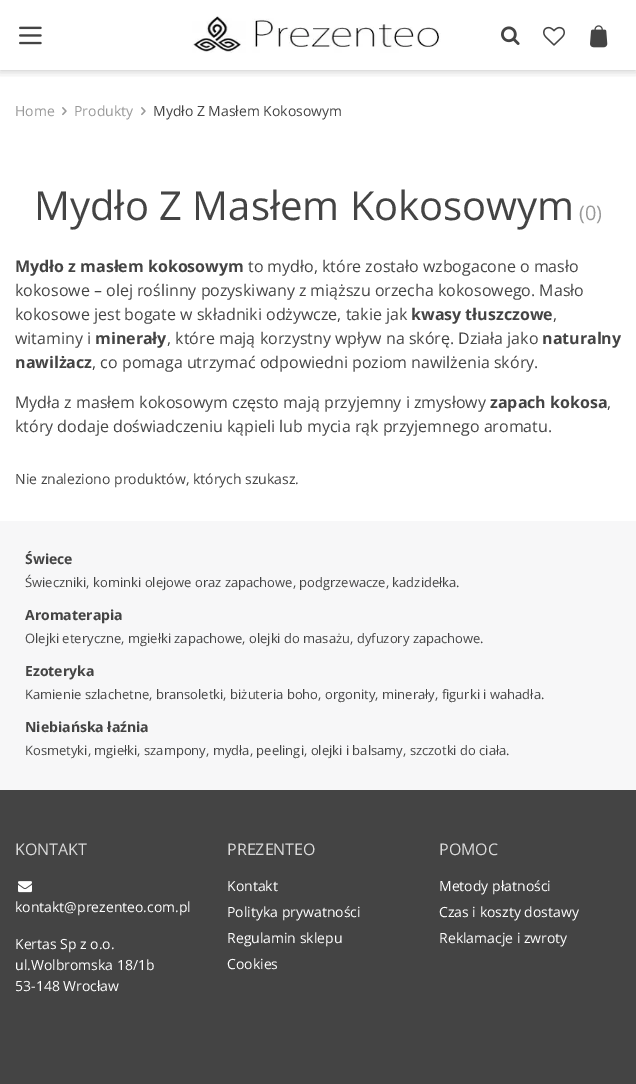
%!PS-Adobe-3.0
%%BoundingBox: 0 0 636 1084
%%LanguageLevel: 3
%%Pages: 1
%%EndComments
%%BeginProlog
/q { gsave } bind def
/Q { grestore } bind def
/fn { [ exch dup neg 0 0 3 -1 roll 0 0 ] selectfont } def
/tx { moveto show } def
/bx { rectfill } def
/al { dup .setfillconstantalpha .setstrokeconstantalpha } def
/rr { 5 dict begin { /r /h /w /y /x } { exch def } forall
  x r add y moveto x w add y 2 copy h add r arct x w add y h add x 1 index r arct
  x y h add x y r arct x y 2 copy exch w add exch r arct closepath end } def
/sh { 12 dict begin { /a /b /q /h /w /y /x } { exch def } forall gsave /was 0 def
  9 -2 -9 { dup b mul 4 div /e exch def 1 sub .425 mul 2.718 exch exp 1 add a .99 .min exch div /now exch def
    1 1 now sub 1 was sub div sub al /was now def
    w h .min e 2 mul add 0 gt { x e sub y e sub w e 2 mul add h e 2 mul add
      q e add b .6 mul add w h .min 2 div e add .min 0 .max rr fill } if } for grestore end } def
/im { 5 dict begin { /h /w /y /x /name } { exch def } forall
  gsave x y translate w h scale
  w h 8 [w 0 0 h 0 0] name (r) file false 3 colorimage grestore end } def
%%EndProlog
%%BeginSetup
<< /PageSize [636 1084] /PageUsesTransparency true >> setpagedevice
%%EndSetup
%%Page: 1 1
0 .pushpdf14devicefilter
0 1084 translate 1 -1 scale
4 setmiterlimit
1 setgray
0 0 636 1084 bx
q
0 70 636 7 rectclip
0 setgray
0 0 636 70 0 5 0.25 sh
Q
(image0.raw) 19 26 23 19 im
(image1.raw) 192 16 249 37 im
(image2.raw) 501 26 19 19 im
(image3.raw) 543 26 22 20 im
(image4.raw) 590 25 18 23 im
/OpenSans-Regular 14 fn
0.6 setgray
(Home) 15 116 tx
(image5.raw) 62 107 5 9 im
(Produkty) 74 116 tx
(image5.raw) 141 107 5 9 im
0.267 setgray
(Mydło Z Masłem Kokosowym) 153 116 tx
/OpenSans-Regular 40 fn
(Mydło Z Masłem Kokosowym) 34 220 tx
/OpenSans-Regular 20 fn
0.6 setgray
(\(0\)) 579 220 tx
/OpenSans-Bold 16 fn
0.267 setgray
(Mydło z masłem kokosowym) 15 272 tx
/OpenSans-Regular 16 fn
(to mydło, które zostało wzbogacone o masło) 248 272 tx
(kokosowe – olej roślinny pozyskiwany z miąższu orzecha kokosowego. Masło) 15 296 tx
(kokosowe jest bogate w składniki odżywcze, takie jak) 15 320 tx
/OpenSans-Bold 16 fn
(kwasy tłuszczowe) 411 320 tx
/OpenSans-Regular 16 fn
(,) 553 320 tx
(witaminy i) 15 344 tx
/OpenSans-Bold 16 fn
(minerały) 95 344 tx
/OpenSans-Regular 16 fn
(, które mają korzystny wpływ na skórę. Działa jako) 167 344 tx
/OpenSans-Bold 16 fn
(naturalny) 542 344 tx
(nawilżacz) 15 368 tx
/OpenSans-Regular 16 fn
(, co pomaga utrzymać odpowiedni poziom nawilżenia skóry.) 92 368 tx
(Mydła z masłem kokosowym często mają przyjemny i zmysłowy) 15 408 tx
/OpenSans-Bold 16 fn
(zapach kokosa) 490 408 tx
/OpenSans-Regular 16 fn
(,) 607 408 tx
(który dodaje doświadczeniu kąpieli lub mycia rąk przyjemnego aromatu.) 15 432 tx
/OpenSans-Regular 14 fn
(Nie znaleziono produktów, których szukasz.) 15 484 tx
0.969 0.969 0.973 setrgbcolor
0 521 636 269 bx
/OpenSans-Bold 14 fn
0.267 setgray
(Świece) 25 564 tx
/OpenSans-Regular 13 fn
(Świeczniki, kominki olejowe oraz zapachowe, podgrzewacze, kadzidełka.) 25 587 tx
/OpenSans-Bold 14 fn
(Aromaterapia) 25 620 tx
/OpenSans-Regular 13 fn
(Olejki eteryczne, mgiełki zapachowe, olejki do masażu, dyfuzory zapachowe.) 25 643 tx
/OpenSans-Bold 14 fn
(Ezoteryka) 25 676 tx
/OpenSans-Regular 13 fn
(Kamienie szlachetne, bransoletki, biżuteria boho, orgonity, minerały, figurki i wahadła.) 25 699 tx
/OpenSans-Bold 14 fn
(Niebiańska łaźnia) 25 732 tx
/OpenSans-Regular 13 fn
(Kosmetyki, mgiełki, szampony, mydła, peelingi, olejki i balsamy, szczotki do ciała.) 25 755 tx
0 790 636 294 bx
/OpenSans-Regular 16 fn
0.855 setgray
(KONTAKT) 15 855 tx
(image6.raw) 18 881 14 12 im
/OpenSans-Regular 14 fn
1 setgray
(kontakt@prezenteo.com.pl) 15 912 tx
(Kertas Sp z o.o.) 15 949 tx
(ul.Wolbromska 18/1b) 15 970 tx
(53-148 Wrocław) 15 991 tx
/OpenSans-Regular 16 fn
0.855 setgray
(PREZENTEO) 227 855 tx
/OpenSans-Regular 14 fn
1 setgray
(Kontakt) 227 891 tx
(Polityka prywatności) 227 917 tx
(Regulamin sklepu) 227 943 tx
(Cookies) 227 969 tx
/OpenSans-Regular 16 fn
0.855 setgray
(POMOC) 439 855 tx
/OpenSans-Regular 14 fn
1 setgray
(Metody płatności) 439 891 tx
(Czas i koszty dostawy) 439 917 tx
(Reklamacje i zwroty) 439 943 tx
.poppdf14devicefilter showpage
%%EOF
